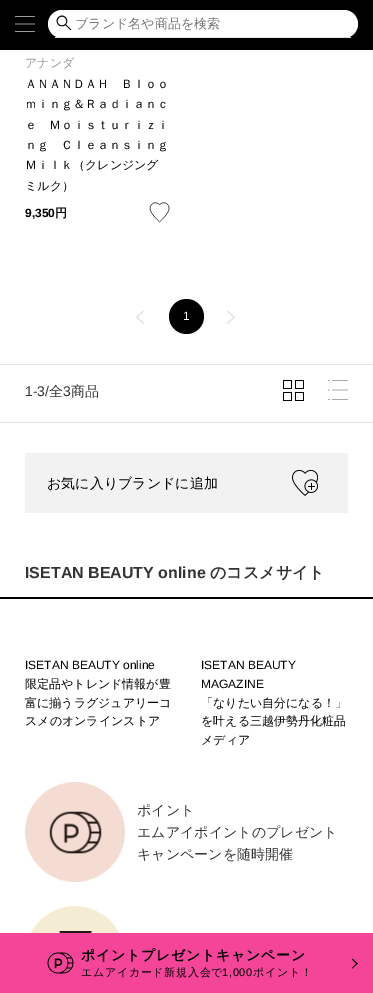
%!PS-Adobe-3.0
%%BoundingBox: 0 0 373 993
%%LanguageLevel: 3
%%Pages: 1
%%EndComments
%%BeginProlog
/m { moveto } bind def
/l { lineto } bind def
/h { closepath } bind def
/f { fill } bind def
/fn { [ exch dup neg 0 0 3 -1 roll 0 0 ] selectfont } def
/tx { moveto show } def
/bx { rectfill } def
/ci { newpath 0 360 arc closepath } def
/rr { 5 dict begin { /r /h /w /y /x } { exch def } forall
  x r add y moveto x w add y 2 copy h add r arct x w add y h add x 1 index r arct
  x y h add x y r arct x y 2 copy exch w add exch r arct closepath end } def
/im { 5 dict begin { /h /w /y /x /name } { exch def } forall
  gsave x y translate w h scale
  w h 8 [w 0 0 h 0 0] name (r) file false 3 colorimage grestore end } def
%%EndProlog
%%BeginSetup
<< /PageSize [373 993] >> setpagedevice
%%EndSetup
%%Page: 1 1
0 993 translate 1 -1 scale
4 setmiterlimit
1 setgray
0 0 373 993 bx
0 setgray
0 0 373 50 bx
(image0.raw) 15 16 20 16 im
1 setgray
48 10 310 28 14 rr f
0.89 setgray
55 37 296 1 bx
(image1.raw) 56 15 16 16 im
/WenQuanYiZenHei-Medium 13 fn
0.459 setgray
(ブランド名や商品を検索) 75 28 tx
/WenQuanYiZenHei-Medium 12 fn
0.6 setgray
(アナンダ) 25 67 tx
0 setgray
(ＡＮＡＮＤＡＨ　Ｂｌｏｏ) 25 88 tx
(ｍｉｎｇ＆Ｒａｄｉａｎｃ) 25 108 tx
(ｅ　Ｍｏｉｓｔｕｒｉｚｉ) 25 129 tx
(ｎｇ　Ｃｌｅａｎｓｉｎｇ) 25 149 tx
(Ｍｉｌｋ（クレンジング) 25 169 tx
(ミルク）) 25 190 tx
/LiberationSans-Bold 12 fn
(9,350) 25 217 tx
/WenQuanYiZenHei-Bold 12 fn
(円) 55 217 tx
(image2.raw) 149 202 21 21 im
0.89 setgray
136.5 316.5 m 144 323 l 143.5 324 l 136 317.5 l h f
136 317 m 143.5 310.5 l 144 311.5 l 136.5 318 l h f
0 setgray
186.5 316.5 17.5 ci f
/LiberationSans-Regular 12 fn
1 setgray
(1) 183 320 tx
0.89 setgray
227 323 m 234.5 316.5 l 235 317.5 l 227.5 324 l h f
227.5 310.5 m 235 317 l 234.5 318 l 227 311.5 l h f
0 364 373 1 bx
0 422 373 1 bx
/LiberationSans-Regular 14 fn
0.2 setgray
(1-3/) 25 396 tx
/WenQuanYiZenHei-Medium 14 fn
(全) 49 396 tx
/LiberationSans-Regular 14 fn
(3) 63 396 tx
/WenQuanYiZenHei-Medium 14 fn
(商品) 71 396 tx
(image3.raw) 283 380 21 21 im
(image4.raw) 328 380 20 20 im
0.949 setgray
25 453 323 60 bx
0 setgray
(お気に入りブランドに追加) 47 488 tx
(image5.raw) 292 470 26 26 im
0 597 373 2 bx
/LiberationSans-Bold 16 fn
0.2 setgray
(ISETAN BEAUTY online) 25 578 tx
/WenQuanYiZenHei-Bold 16 fn
(のコスメサイト) 210 578 tx
/LiberationSans-Regular 12 fn
0 setgray
(ISETAN BEAUTY online) 25 669 tx
/WenQuanYiZenHei-Medium 12 fn
(限定品やトレンド情報が豊) 25 688 tx
(富に揃うラグジュアリーコ) 25 707 tx
(スメのオンラインストア) 25 725 tx
/LiberationSans-Regular 12 fn
(ISETAN BEAUTY) 201 669 tx
(MAGAZINE) 201 688 tx
/WenQuanYiZenHei-Medium 12 fn
(「なりたい自分になる！」) 201 707 tx
(を叶える三越伊勢丹化粧品) 201 725 tx
(メディア) 201 744 tx
(image6.raw) 25 782 100 100 im
/WenQuanYiZenHei-Medium 14 fn
0.2 setgray
(ポイント) 137 815 tx
(エムアイポイントのプレゼント) 137 837 tx
(キャンペーンを随時開催) 137 859 tx
(image7.raw) 30 906 90 27 im
0.961 0.271 0.596 setrgbcolor
0 933 373 60 bx
(image8.raw) 47 952 27 22 im
/WenQuanYiZenHei-Bold 13.9 fn
0 setgray
81 960 m 0.8 0 (ポイントプレゼントキャンペーン) ashow
/WenQuanYiZenHei-Medium 11 fn
81 976 m 0.7 0 (エムアイカード新規入会で) ashow
/LiberationSans-Regular 11 fn
222 976 m 0.7 0 (1,000) ashow
/WenQuanYiZenHei-Medium 11 fn
253 976 m 0.7 0 (ポイント！) ashow
352.5 958.5 m 357.5 963.5 l 357 964.5 l 352 959.5 l h f
357 963 m 357.5 963.5 l 352.5 968.5 l 352 968 l h f
showpage
%%EOF
